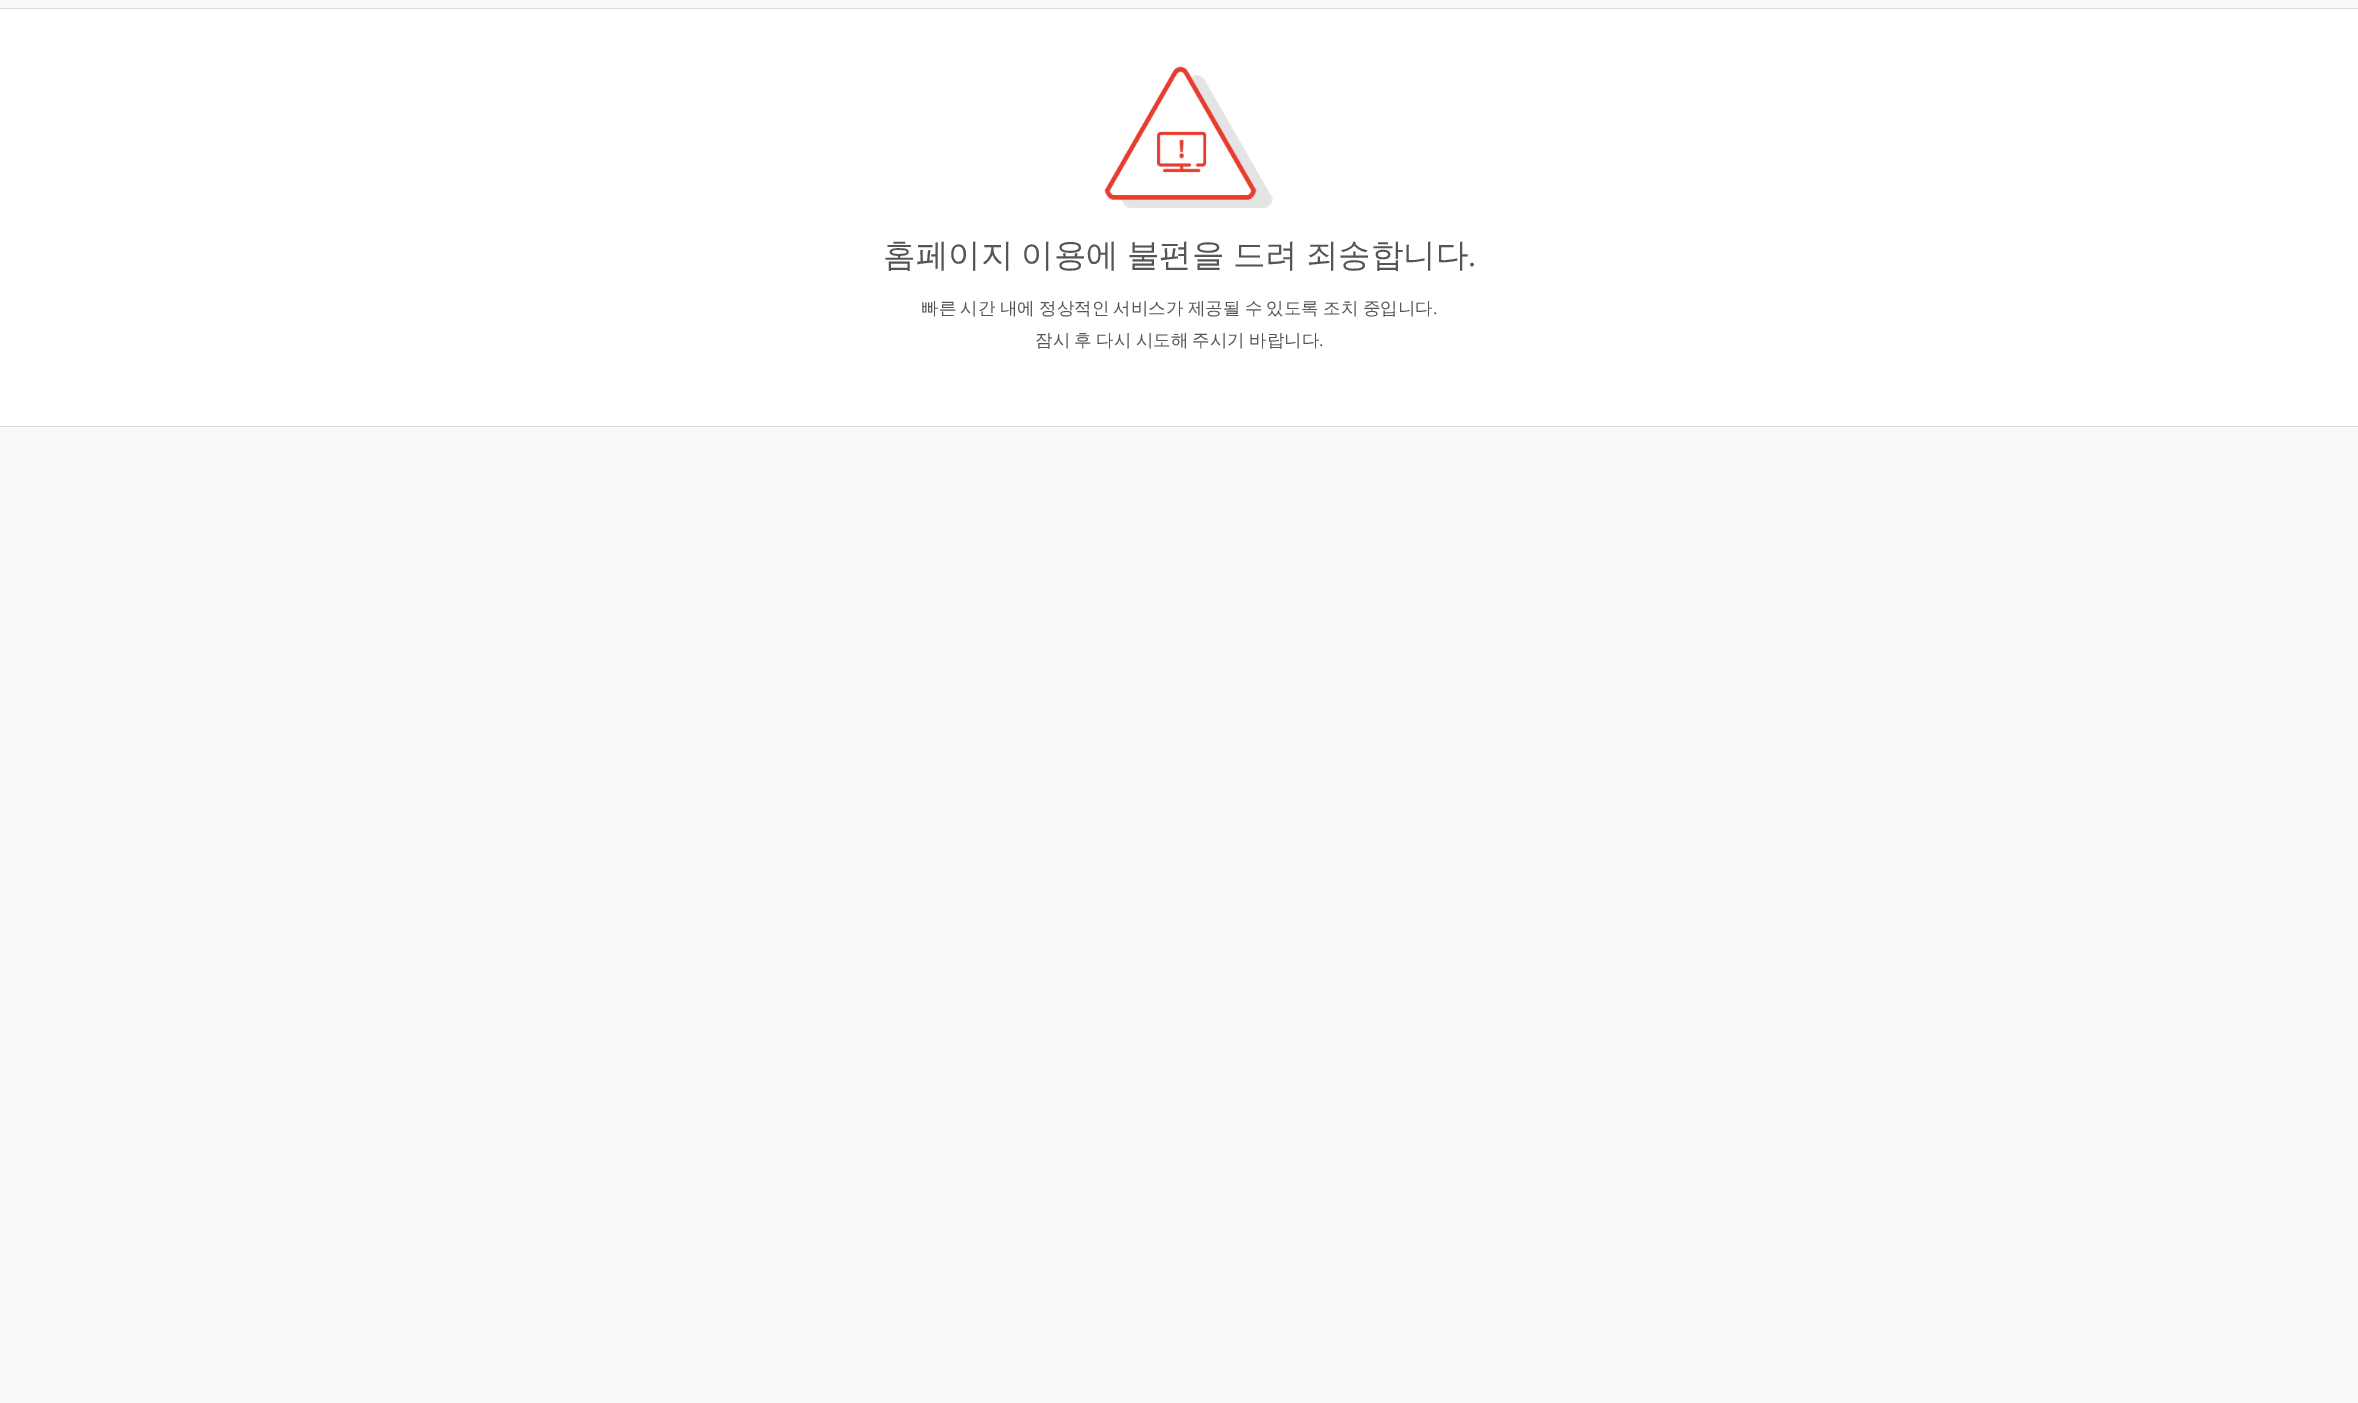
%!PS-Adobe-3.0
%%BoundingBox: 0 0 2358 1403
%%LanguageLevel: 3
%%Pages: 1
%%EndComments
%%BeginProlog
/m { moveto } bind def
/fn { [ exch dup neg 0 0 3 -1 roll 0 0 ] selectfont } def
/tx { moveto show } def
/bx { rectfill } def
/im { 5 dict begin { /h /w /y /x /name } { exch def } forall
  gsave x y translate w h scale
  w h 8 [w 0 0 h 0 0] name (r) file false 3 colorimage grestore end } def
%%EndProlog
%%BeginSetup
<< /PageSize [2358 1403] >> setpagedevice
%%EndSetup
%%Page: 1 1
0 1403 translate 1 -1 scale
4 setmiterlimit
0.976 setgray
0 0 2358 1403 bx
1 setgray
0 9 2358 419 bx
(image0.raw) 1104 66 169 142 im
0.867 setgray
0 8 2358 1 bx
0 426 2358 1 bx
/WenQuanYiZenHei-Medium 32.5 fn
0.333 setgray
883 266 m -1.5 0 32 (홈페이지 이용에 불편을 드려 죄송합니다) widthshow
/LiberationSerif-Regular 32.5 fn
(.) 1468 266 tx
/WenQuanYiZenHei-Medium 17.5 fn
921 314 m -0.9 0 32 (빠른 시간 내에 정상적인 서비스가 제공될 수 있도록 조치 중입니다) widthshow
/LiberationSerif-Regular 17.5 fn
(.) 1433 314 tx
/WenQuanYiZenHei-Medium 17.5 fn
1035 346 m -0.9 0 32 (잠시 후 다시 시도해 주시기 바랍니다) widthshow
/LiberationSerif-Regular 17.5 fn
(.) 1319 346 tx
showpage
%%EOF
